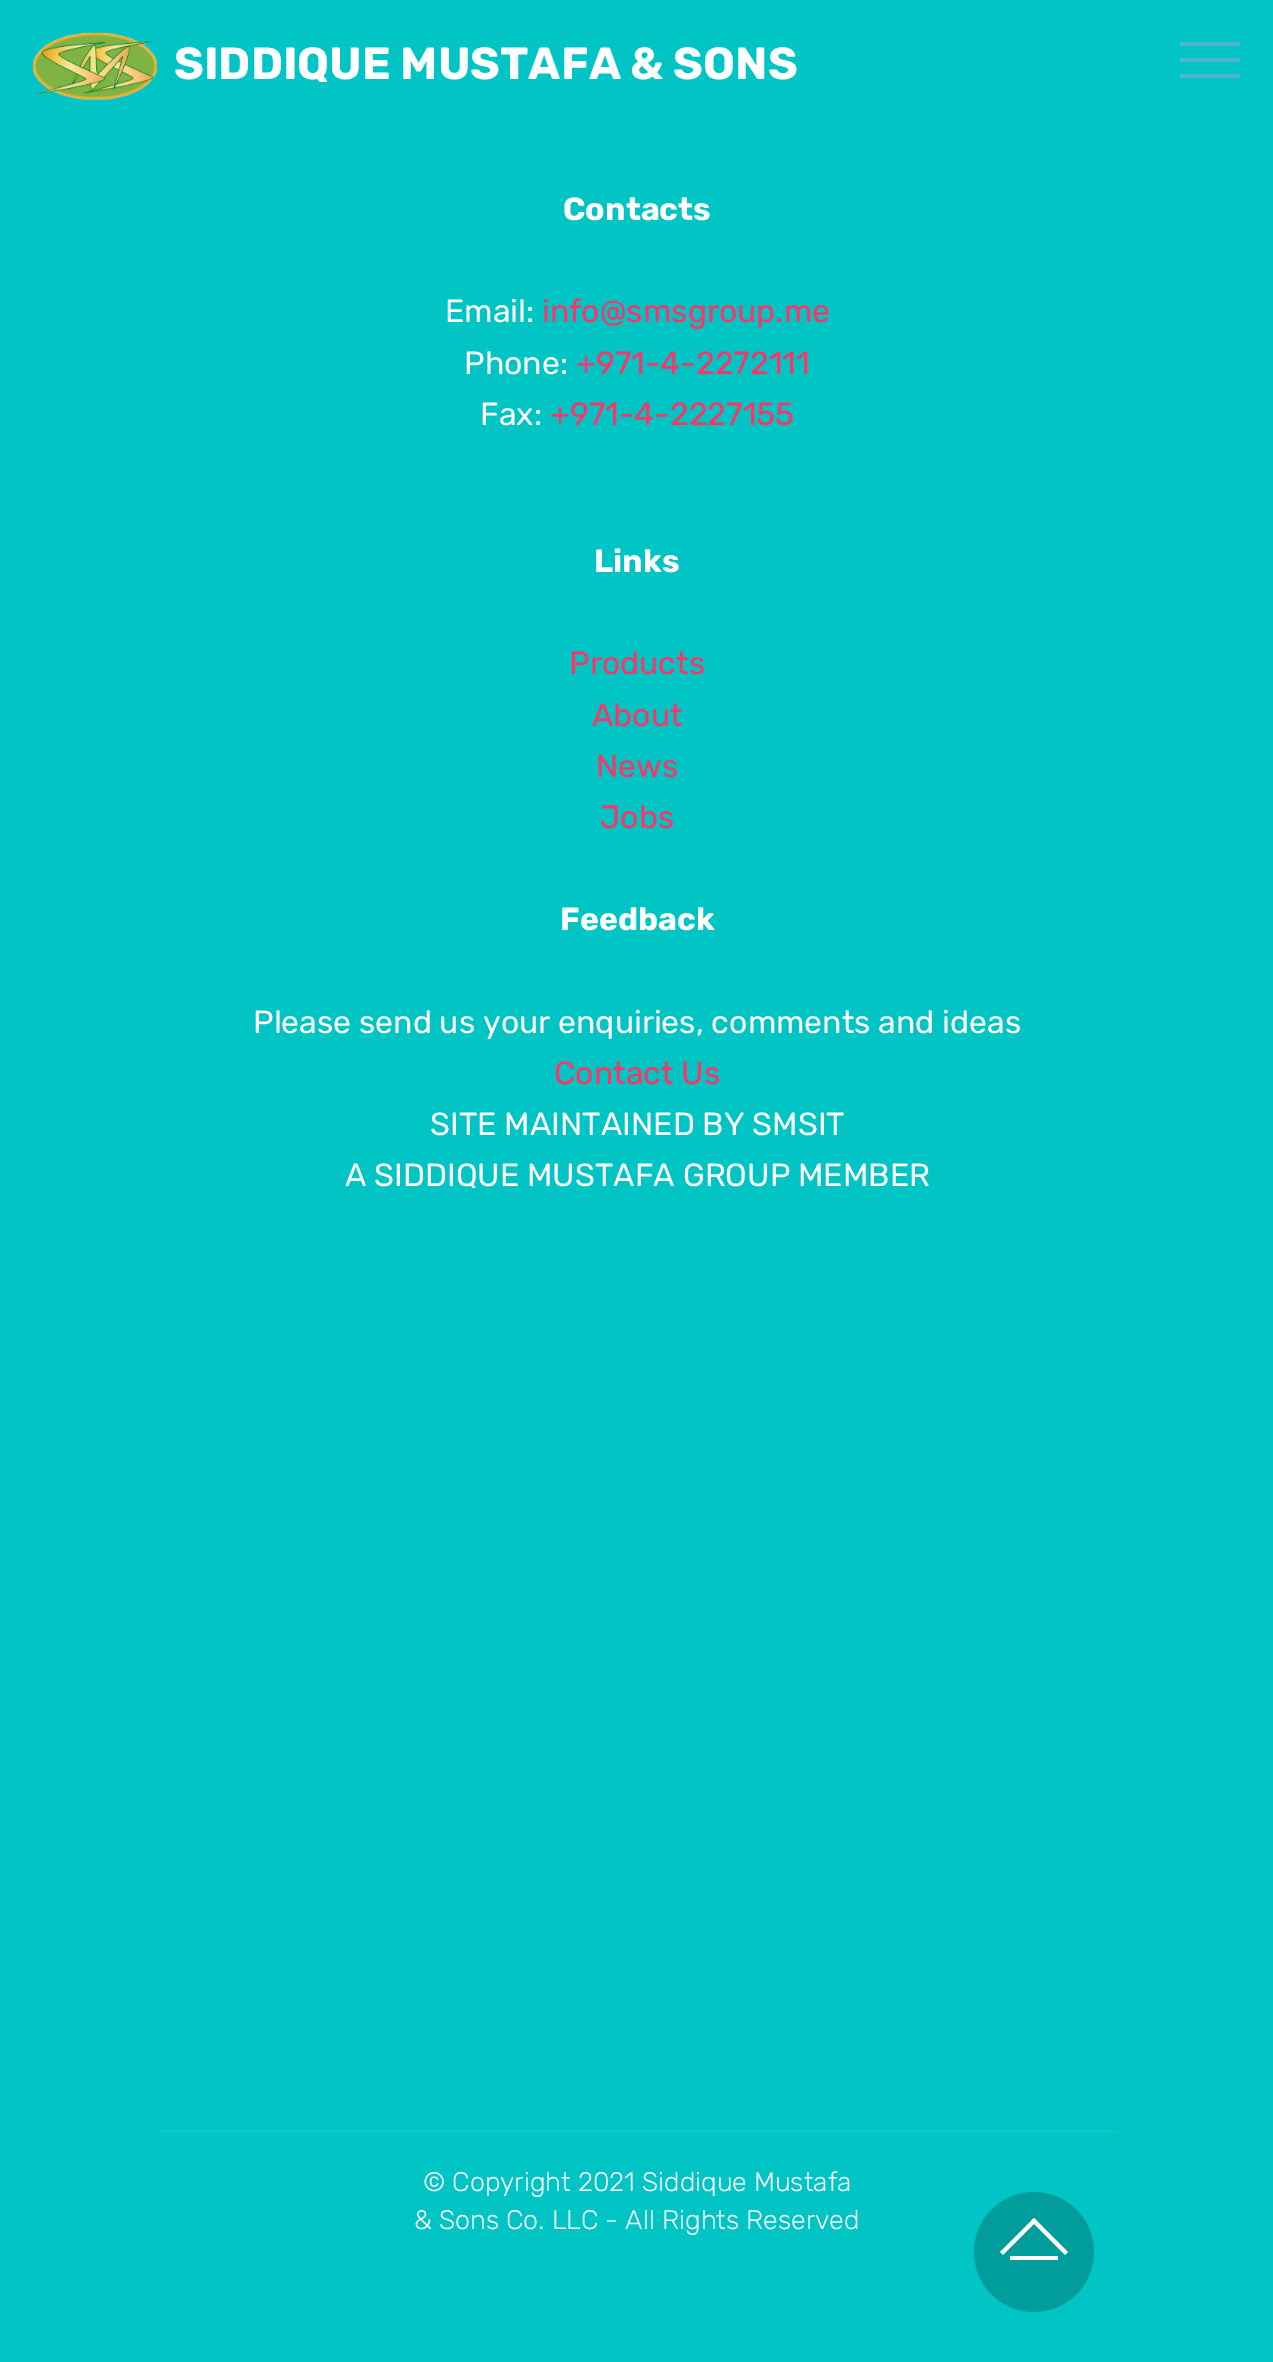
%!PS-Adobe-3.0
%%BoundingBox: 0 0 1273 2362
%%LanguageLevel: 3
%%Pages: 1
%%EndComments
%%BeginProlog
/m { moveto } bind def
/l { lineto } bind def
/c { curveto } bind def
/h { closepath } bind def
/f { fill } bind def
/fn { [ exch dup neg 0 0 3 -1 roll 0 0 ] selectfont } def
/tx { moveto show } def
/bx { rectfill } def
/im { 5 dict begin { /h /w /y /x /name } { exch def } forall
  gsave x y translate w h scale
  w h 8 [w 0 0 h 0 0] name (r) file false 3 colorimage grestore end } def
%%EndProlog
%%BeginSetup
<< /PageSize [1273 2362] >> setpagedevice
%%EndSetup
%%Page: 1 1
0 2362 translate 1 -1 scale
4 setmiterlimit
0.004 0.769 0.769 setrgbcolor
0 0 1273 2362 bx
(image0.raw) 32 32 126 69 im
/Rubik-Bold 45 fn
1 setgray
(SIDDIQUE MUSTAFA & SONS) 174 79 tx
0.333 0.706 0.831 setrgbcolor
1180 42 60 4 bx
1180 58 60 4 bx
1180 74 60 4 bx
/Rubik-Bold 32 fn
1 setgray
(Contacts) 563 220 tx
/Rubik-Regular 32 fn
(Email:) 445 322 tx
1 0.2 0.4 setrgbcolor
(info@smsgroup.me) 542 322 tx
1 setgray
(Phone:) 464 374 tx
1 0.2 0.4 setrgbcolor
(+971-4-2272111) 576 374 tx
1 setgray
(Fax:) 480 425 tx
1 0.2 0.4 setrgbcolor
(+971-4-2227155) 550 425 tx
/Rubik-Bold 32 fn
1 setgray
(Links) 594 572 tx
/Rubik-Regular 32 fn
1 0.2 0.4 setrgbcolor
(Products) 569 674 tx
(About) 592 726 tx
(News) 596 777 tx
(Jobs) 600 828 tx
/Rubik-Bold 32 fn
1 setgray
(Feedback) 560 930 tx
/Rubik-Regular 32 fn
(Please send us your enquiries, comments and ideas) 253 1033 tx
1 0.2 0.4 setrgbcolor
(Contact Us) 554 1084 tx
1 setgray
(SITE MAINTAINED BY SMSIT) 430 1135 tx
(A SIDDIQUE MUSTAFA GROUP MEMBER) 345 1186 tx
0.055 0.78 0.78 setrgbcolor
158 2130 960 2 bx
/Rubik-Light 26.8 fn
1 setgray
(© Copyright 2021 Siddique Mustafa) 423 2191 tx
(& Sons Co. LLC - All Rights Reserved) 414 2229 tx
0.004 0.616 0.616 setrgbcolor
1034 2312 m 1001 2312 974 2285 974 2252 c 974 2219 1001 2192 1034 2192 c 1067 2192 1094 2219 1094 2252 c 1094 2285 1067 2312 1034 2312 c h f
1 setgray
1000 2252 m 1034 2218 l 1037 2221 l 1003 2255 l h f
1031 2221 m 1034 2218 l 1068 2252 l 1065 2255 l h f
1010 2256 48 4 bx
showpage
%%EOF
